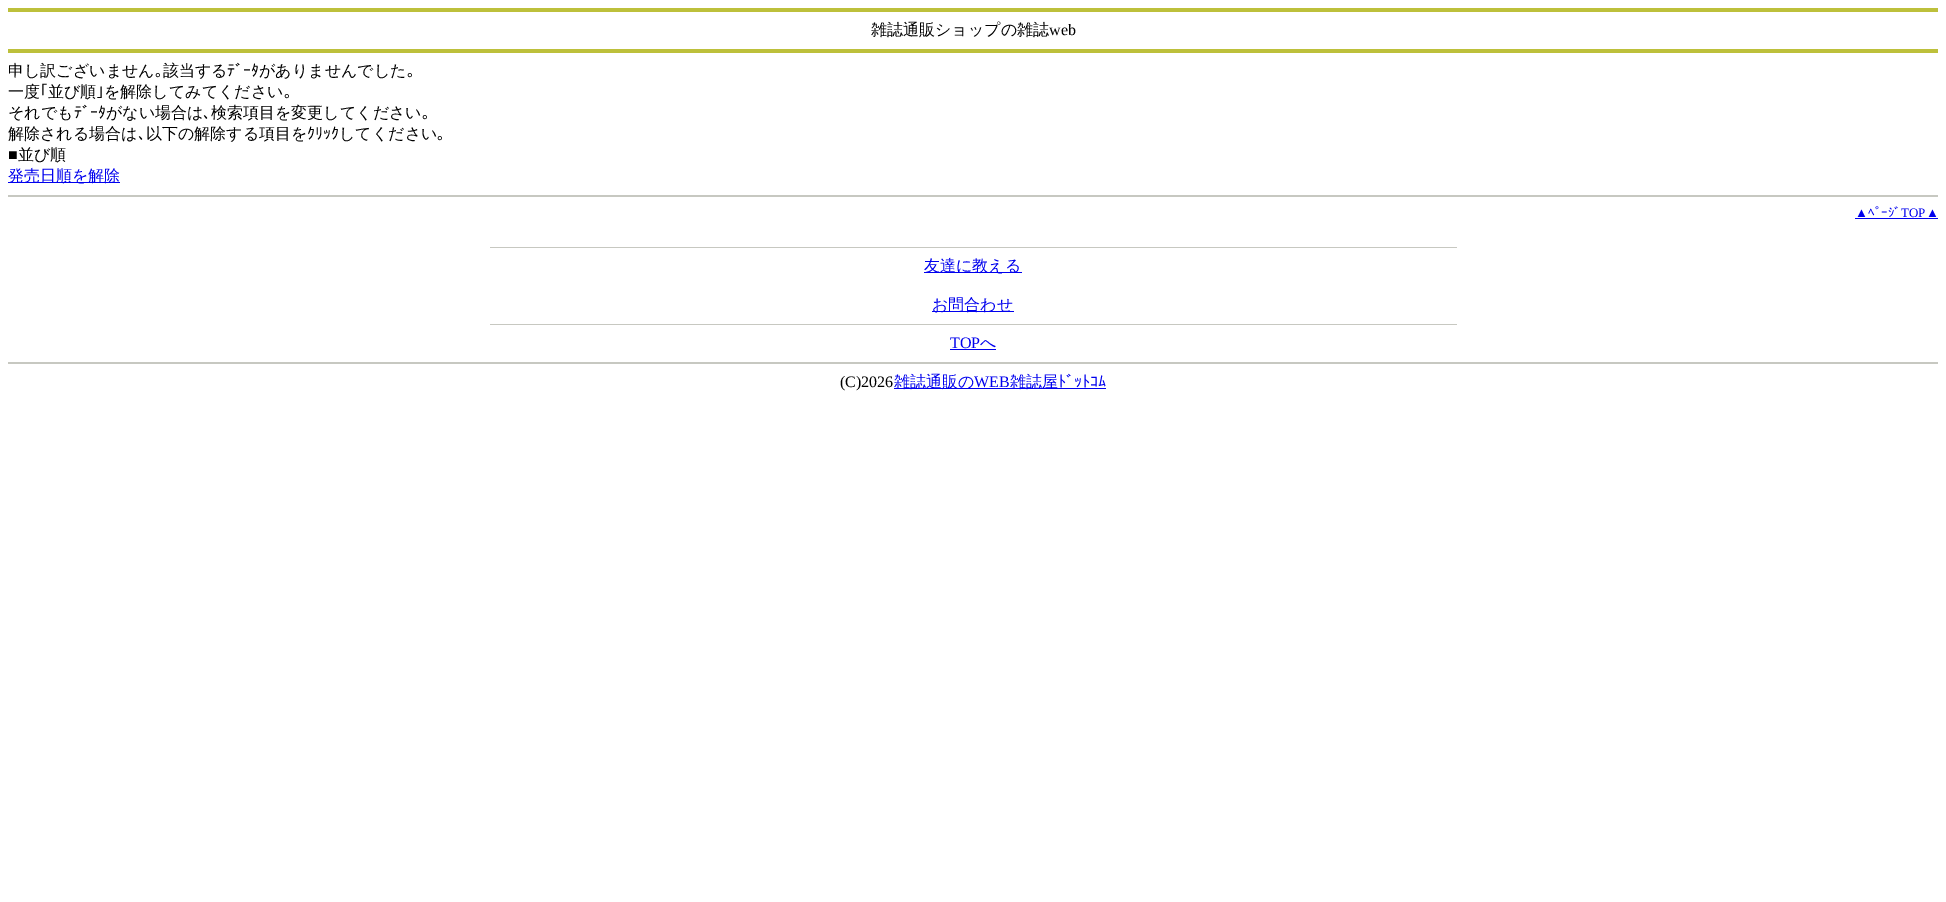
%!PS-Adobe-3.0
%%BoundingBox: 0 0 1946 902
%%LanguageLevel: 3
%%Pages: 1
%%EndComments
%%BeginProlog
/fn { [ exch dup neg 0 0 3 -1 roll 0 0 ] selectfont } def
/tx { moveto show } def
/bx { rectfill } def
%%EndProlog
%%BeginSetup
<< /PageSize [1946 902] >> setpagedevice
%%EndSetup
%%Page: 1 1
0 902 translate 1 -1 scale
4 setmiterlimit
1 setgray
0 0 1946 902 bx
0.741 0.753 0.231 setrgbcolor
8 8 1930 4 bx
/WenQuanYiZenHei-Medium 16 fn
0 setgray
(雑誌通販ショップの雑誌) 871 35 tx
/LiberationSerif-Regular 16 fn
(web) 1049 35 tx
0.741 0.753 0.231 setrgbcolor
8 49 1930 4 bx
/WenQuanYiZenHei-Medium 16 fn
0 setgray
(申し訳ございません) 8 76 tx
/IPAPGothic-Regular 16 fn
(｡) 155 76 tx
/WenQuanYiZenHei-Medium 16 fn
(該当する) 163 76 tx
/IPAPGothic-Regular 16 fn
(ﾃﾞｰﾀ) 227 76 tx
/WenQuanYiZenHei-Medium 16 fn
(がありませんでした) 259 76 tx
/IPAPGothic-Regular 16 fn
(｡) 407 76 tx
/WenQuanYiZenHei-Medium 16 fn
(一度) 8 97 tx
/IPAPGothic-Regular 16 fn
(｢) 40 97 tx
/WenQuanYiZenHei-Medium 16 fn
(並び順) 48 97 tx
/IPAPGothic-Regular 16 fn
(｣) 96 97 tx
/WenQuanYiZenHei-Medium 16 fn
(を解除してみてください) 104 97 tx
/IPAPGothic-Regular 16 fn
(｡) 284 97 tx
/WenQuanYiZenHei-Medium 16 fn
(それでも) 8 118 tx
/IPAPGothic-Regular 16 fn
(ﾃﾞｰﾀ) 74 118 tx
/WenQuanYiZenHei-Medium 16 fn
(がない場合は) 106 118 tx
/IPAPGothic-Regular 16 fn
(､) 203 118 tx
/WenQuanYiZenHei-Medium 16 fn
(検索項目を変更してください) 211 118 tx
/IPAPGothic-Regular 16 fn
(｡) 422 118 tx
/WenQuanYiZenHei-Medium 16 fn
(解除される場合は) 8 139 tx
/IPAPGothic-Regular 16 fn
(､) 138 139 tx
/WenQuanYiZenHei-Medium 16 fn
(以下の解除する項目を) 146 139 tx
/IPAPGothic-Regular 16 fn
(ｸﾘｯｸ) 307 139 tx
/WenQuanYiZenHei-Medium 16 fn
(してください) 339 139 tx
/IPAPGothic-Regular 16 fn
(｡) 437 139 tx
/LiberationSerif-Regular 16 fn
(■) 8 160 tx
/WenQuanYiZenHei-Medium 16 fn
(並び順) 18 160 tx
0 0 0.933 setrgbcolor
8 182 112 1 bx
(発売日順を解除) 8 181 tx
0.78 0.784 0.757 setrgbcolor
8 195 1930 2 bx
/LiberationSerif-Regular 13 fn
0 0 0.933 setrgbcolor
(▲) 1855 217 tx
1855 218 83 1 bx
/IPAPGothic-Regular 13 fn
(ﾍﾟｰｼﾞ) 1868 217 tx
/LiberationSerif-Regular 13 fn
(TOP▲) 1901 217 tx
0.78 0.784 0.757 setrgbcolor
490 247 967 1 bx
0 0 0.933 setrgbcolor
924 272 98 1 bx
/WenQuanYiZenHei-Medium 16 fn
(友達に教える) 924 271 tx
932 311 82 1 bx
(お問合わせ) 932 310 tx
0.78 0.784 0.757 setrgbcolor
490 324 967 1 bx
/LiberationSerif-Regular 16 fn
0 0 0.933 setrgbcolor
(TOP) 950 348 tx
/WenQuanYiZenHei-Medium 16 fn
(へ) 980 348 tx
950 349 46 1 bx
0.78 0.784 0.757 setrgbcolor
8 362 1930 2 bx
/LiberationSerif-Regular 16 fn
0 setgray
(\(C\)2026) 840 387 tx
0 0 0.933 setrgbcolor
894 388 212 1 bx
/WenQuanYiZenHei-Medium 16 fn
(雑誌通販の) 894 387 tx
/LiberationSerif-Regular 16 fn
(WEB) 974 387 tx
/WenQuanYiZenHei-Medium 16 fn
(雑誌屋) 1010 387 tx
/IPAPGothic-Regular 16 fn
(ﾄﾞｯﾄｺﾑ) 1058 387 tx
showpage
%%EOF
